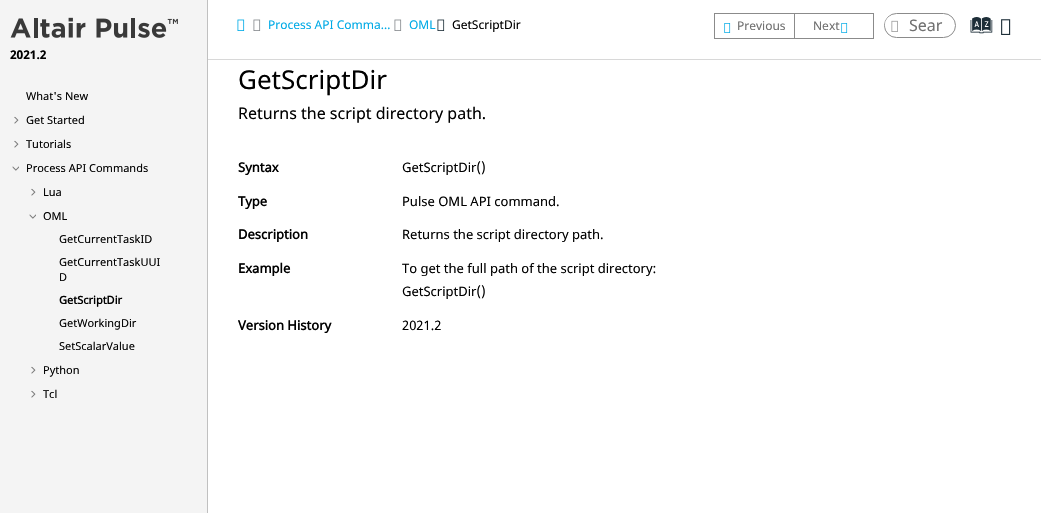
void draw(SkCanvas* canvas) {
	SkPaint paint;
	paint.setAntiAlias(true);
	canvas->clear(0xffffffff);
	paint.setColor(0xfff4f4f4);
	canvas->drawRect(SkRect::MakeXYWH(0, 0, 207, 513), paint);
	paint.setColor(0xffc0c0c0);
	canvas->drawRect(SkRect::MakeXYWH(207, 0, 1, 513), paint);
	canvas->drawImageRect(SkImages::DeferredFromEncodedData(SkData::MakeFromFileName("img1.png")), SkRect::MakeXYWH(10, 17, 168, 21), SkSamplingOptions());
	SkFont f1(fontMgr->matchFamilyStyle("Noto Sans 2", SkFontStyle::Bold()), 12);
	f1.setSubpixel(true);
	paint.setColor(0xff000000);
	canvas->drawString("2021.2", 10, 59, f1, paint);
	SkFont f2(fontMgr->matchFamilyStyle("Noto Sans", SkFontStyle::Normal()), 11);
	f2.setSubpixel(true);
	canvas->drawString("What's New", 26, 100, f2, paint);
	canvas->drawImageRect(SkImages::DeferredFromEncodedData(SkData::MakeFromFileName("img2.png")), SkRect::MakeXYWH(14, 116, 5, 8), SkSamplingOptions());
	canvas->drawString("Get Started", 26, 124, f2, paint);
	canvas->drawImageRect(SkImages::DeferredFromEncodedData(SkData::MakeFromFileName("img2.png")), SkRect::MakeXYWH(14, 140, 5, 8), SkSamplingOptions());
	canvas->drawString("Tutorials", 26, 148, f2, paint);
	canvas->drawImageRect(SkImages::DeferredFromEncodedData(SkData::MakeFromFileName("img3.png")), SkRect::MakeXYWH(12, 166, 7, 5), SkSamplingOptions());
	canvas->drawString("Process API Commands", 26, 172, f2, paint);
	canvas->drawImageRect(SkImages::DeferredFromEncodedData(SkData::MakeFromFileName("img2.png")), SkRect::MakeXYWH(31, 188, 5, 8), SkSamplingOptions());
	canvas->drawString("Lua", 43, 196, f2, paint);
	canvas->drawImageRect(SkImages::DeferredFromEncodedData(SkData::MakeFromFileName("img3.png")), SkRect::MakeXYWH(29, 214, 7, 5), SkSamplingOptions());
	canvas->drawString("OML", 43, 220, f2, paint);
	canvas->drawString("GetCurrentTaskID", 59, 243, f2, paint);
	canvas->drawString("GetCurrentTaskUUI", 59, 266, f2, paint);
	canvas->drawString("D", 59, 281, f2, paint);
	SkFont f3(fontMgr->matchFamilyStyle("Noto Sans", SkFontStyle::Bold()), 11);
	f3.setSubpixel(true);
	canvas->drawString("GetScriptDir", 59, 304, f3, paint);
	canvas->drawString("GetWorkingDir", 59, 327, f2, paint);
	canvas->drawString("SetScalarValue", 59, 350, f2, paint);
	canvas->drawImageRect(SkImages::DeferredFromEncodedData(SkData::MakeFromFileName("img2.png")), SkRect::MakeXYWH(31, 366, 5, 8), SkSamplingOptions());
	canvas->drawString("Python", 43, 374, f2, paint);
	canvas->drawImageRect(SkImages::DeferredFromEncodedData(SkData::MakeFromFileName("img2.png")), SkRect::MakeXYWH(31, 390, 5, 8), SkSamplingOptions());
	canvas->drawString("Tcl", 43, 398, f2, paint);
	paint.setColor(0xffd8d8d8);
	canvas->drawRect(SkRect::MakeXYWH(208, 59, 833, 1), paint);
	canvas->drawImageRect(SkImages::DeferredFromEncodedData(SkData::MakeFromFileName("img4.png")), SkRect::MakeXYWH(237, 19, 8, 12), SkSamplingOptions());
	canvas->drawImageRect(SkImages::DeferredFromEncodedData(SkData::MakeFromFileName("img5.png")), SkRect::MakeXYWH(253, 19, 8, 12), SkSamplingOptions());
	SkFont f4(fontMgr->matchFamilyStyle("Noto Sans", SkFontStyle::Normal()), 12);
	f4.setSubpixel(true);
	paint.setColor(0xff00aae6);
	canvas->drawString("Process API Comma…", 268, 29, f4, paint);
	canvas->drawImageRect(SkImages::DeferredFromEncodedData(SkData::MakeFromFileName("img5.png")), SkRect::MakeXYWH(394, 19, 8, 12), SkSamplingOptions());
	canvas->drawString("OML", 409, 29, f4, paint);
	canvas->drawImageRect(SkImages::DeferredFromEncodedData(SkData::MakeFromFileName("img6.png")), SkRect::MakeXYWH(437, 19, 8, 12), SkSamplingOptions());
	paint.setColor(0xff000000);
	canvas->drawString("GetScriptDir", 452, 29, f4, paint);
	paint.setColor(0xff8b8b8b);
	canvas->drawRect(SkRect::MakeXYWH(714, 13, 80, 1), paint);
	canvas->drawRect(SkRect::MakeXYWH(714, 38, 80, 1), paint);
	canvas->drawRect(SkRect::MakeXYWH(714, 13, 1, 26), paint);
	canvas->drawImageRect(SkImages::DeferredFromEncodedData(SkData::MakeFromFileName("img7.png")), SkRect::MakeXYWH(724, 23, 7, 10), SkSamplingOptions());
	paint.setColor(0xff707070);
	canvas->drawString("Previous", 737, 30, f4, paint);
	paint.setStroke(true);
	paint.setStrokeWidth(1);
	paint.setColor(0xff8b8b8b);
	canvas->drawRect(SkRect::MakeXYWH(794.5, 13.5, 79, 25), paint);
	paint.setStroke(false);
	paint.setColor(0xff707070);
	canvas->drawString("Next", 813, 30, f4, paint);
	canvas->drawImageRect(SkImages::DeferredFromEncodedData(SkData::MakeFromFileName("img7.png")), SkRect::MakeXYWH(841, 23, 7, 10), SkSamplingOptions());
	paint.setStroke(true);
	paint.setColor(0xff8b8b8b);
	canvas->drawRoundRect(SkRect::MakeXYWH(884.5, 13.5, 71, 24), 12, 12, paint);
	paint.setStroke(false);
	paint.setColor(0xffffffff);
	canvas->drawRoundRect(SkRect::MakeXYWH(885, 15, 20, 19), 9.5, 9.5, paint);
	canvas->drawImageRect(SkImages::DeferredFromEncodedData(SkData::MakeFromFileName("img8.png")), SkRect::MakeXYWH(891, 20, 7, 12), SkSamplingOptions());
	SkFont f5(fontMgr->matchFamilyStyle("Noto Sans", SkFontStyle::Normal()), 16);
	f5.setSubpixel(true);
	paint.setColor(0xff707070);
	canvas->drawString("Sear", 909, 31, f5, paint);
	SkFont f6(fontMgr->matchFamilyStyle("Oxygen", SkFontStyle::Normal()), 23);
	f6.setSubpixel(true);
	paint.setColor(0xff1d2e38);
	canvas->drawString("a", 973, 36, f6, paint);
	canvas->drawImageRect(SkImages::DeferredFromEncodedData(SkData::MakeFromFileName("img9.png")), SkRect::MakeXYWH(1001, 19, 10, 16), SkSamplingOptions());
	SkFont f7(fontMgr->matchFamilyStyle("Noto Sans", SkFontStyle::Normal()), 26);
	f7.setSubpixel(true);
	paint.setColor(0xff000000);
	canvas->drawString("GetScriptDir", 238, 89, f7, paint);
	canvas->drawString("Returns the script directory path.", 238, 119, f5, paint);
	SkFont f8(fontMgr->matchFamilyStyle("Noto Sans", SkFontStyle::Bold()), 13);
	f8.setSubpixel(true);
	canvas->drawString("Syntax", 238, 172, f8, paint);
	SkFont f9(fontMgr->matchFamilyStyle("Noto Sans", SkFontStyle::Normal()), 13);
	f9.setSubpixel(true);
	canvas->drawString("GetScriptDir()", 402, 172, f9, paint);
	canvas->drawString("Type", 238, 206, f8, paint);
	canvas->drawString("Pulse OML API command.", 402, 206, f9, paint);
	canvas->drawString("Description", 238, 239, f8, paint);
	canvas->drawString("Returns the script directory path.", 402, 239, f9, paint);
	canvas->drawString("Example", 238, 273, f8, paint);
	canvas->drawString("To get the full path of the script directory:", 402, 273, f9, paint);
	canvas->drawString("GetScriptDir()", 402, 296, f9, paint);
	canvas->drawString("Version History", 238, 330, f8, paint);
	canvas->drawString("2021.2", 402, 330, f9, paint);
}
